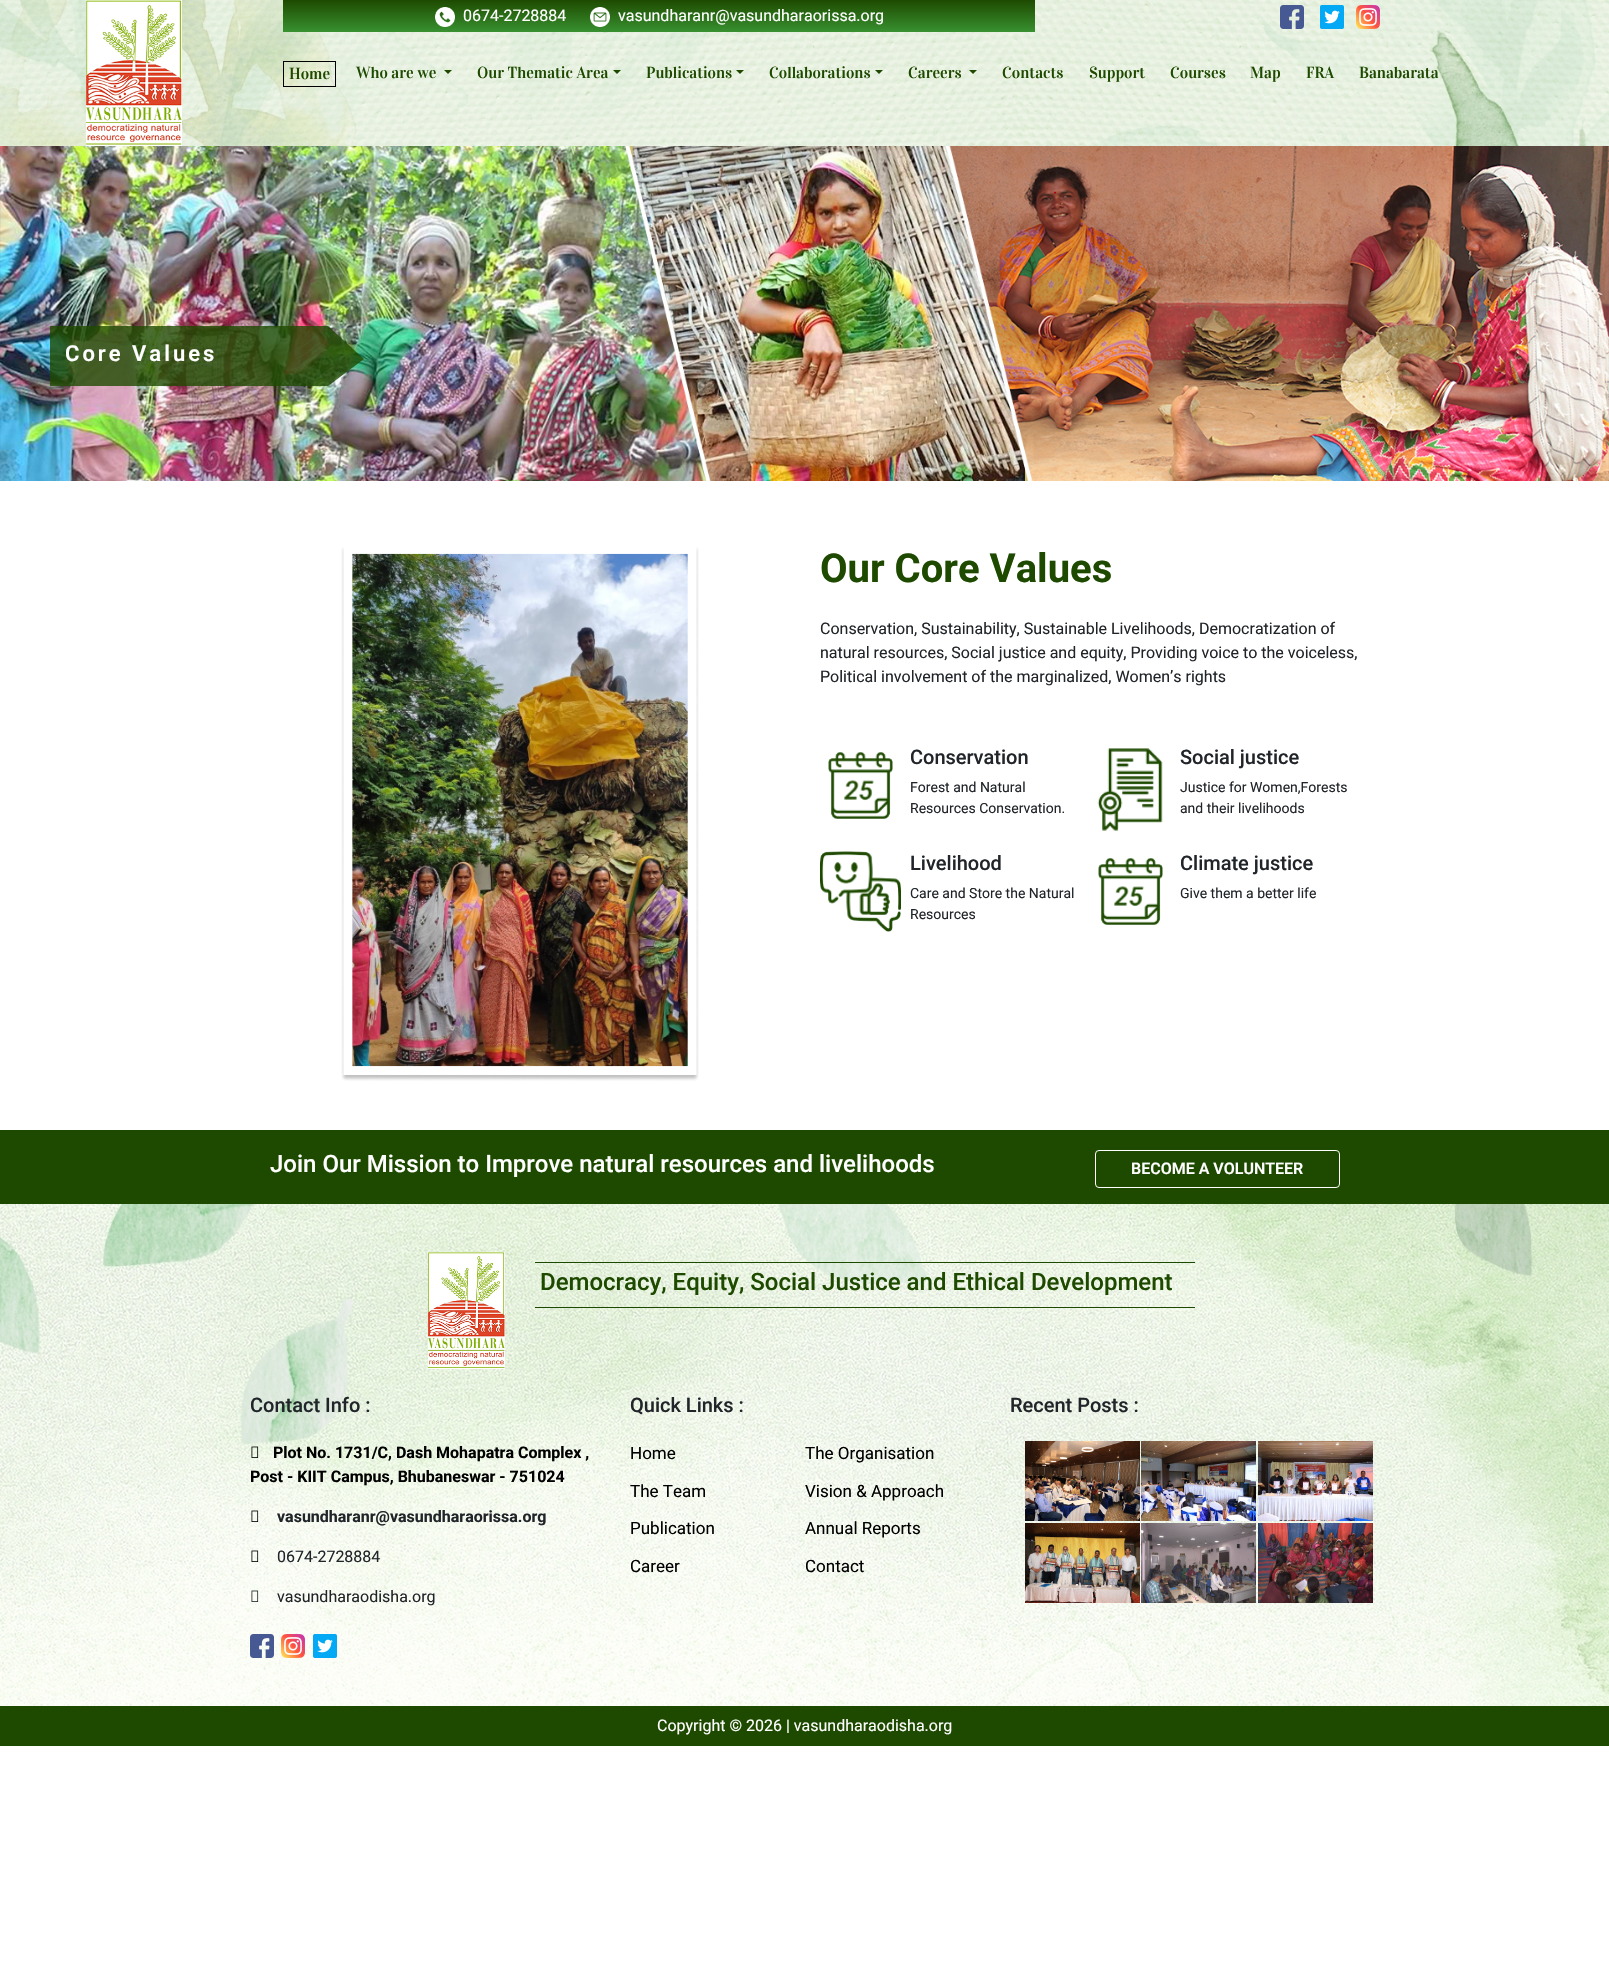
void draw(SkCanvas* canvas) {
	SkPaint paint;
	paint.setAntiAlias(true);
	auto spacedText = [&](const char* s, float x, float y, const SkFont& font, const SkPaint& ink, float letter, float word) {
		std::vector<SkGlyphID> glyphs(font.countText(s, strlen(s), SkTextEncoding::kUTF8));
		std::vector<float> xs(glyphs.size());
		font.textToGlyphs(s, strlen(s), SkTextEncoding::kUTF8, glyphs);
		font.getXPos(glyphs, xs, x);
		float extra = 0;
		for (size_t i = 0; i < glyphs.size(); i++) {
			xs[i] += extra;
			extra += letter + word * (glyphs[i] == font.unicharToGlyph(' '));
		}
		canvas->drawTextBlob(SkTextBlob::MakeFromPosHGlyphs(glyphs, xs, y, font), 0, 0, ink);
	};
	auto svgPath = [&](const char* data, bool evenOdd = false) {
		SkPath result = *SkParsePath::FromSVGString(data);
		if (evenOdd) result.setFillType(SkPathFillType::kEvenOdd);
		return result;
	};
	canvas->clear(0xffffffff);
	canvas->drawImageRect(SkImages::DeferredFromEncodedData(SkData::MakeFromFileName("img1.png")), SkRect::MakeXYWH(0, 0, 1609, 146), SkSamplingOptions());
	canvas->drawImageRect(SkImages::DeferredFromEncodedData(SkData::MakeFromFileName("img2.png")), SkRect::MakeXYWH(86, 0, 96, 146), SkSamplingOptions());
	canvas->drawImageRect(SkImages::DeferredFromEncodedData(SkData::MakeFromFileName("img3.png")), SkRect::MakeXYWH(435, 7, 20, 20), SkSamplingOptions());
	SkFont f1(fontMgr->matchFamilyStyle("Roboto", SkFontStyle::Normal()), 16);
	f1.setSubpixel(true);
	paint.setColor(0xffffffff);
	canvas->drawString("0674-2728884", 463, 21, f1, paint);
	canvas->drawImageRect(SkImages::DeferredFromEncodedData(SkData::MakeFromFileName("img4.png")), SkRect::MakeXYWH(590, 7, 20, 20), SkSamplingOptions());
	canvas->drawString("vasundharanr@vasundharaorissa.org", 618, 21, f1, paint);
	canvas->drawImageRect(SkImages::DeferredFromEncodedData(SkData::MakeFromFileName("img5.png")), SkRect::MakeXYWH(1280, 5, 24, 24), SkSamplingOptions());
	canvas->drawImageRect(SkImages::DeferredFromEncodedData(SkData::MakeFromFileName("img6.png")), SkRect::MakeXYWH(1320, 5, 24, 24), SkSamplingOptions());
	canvas->drawImageRect(SkImages::DeferredFromEncodedData(SkData::MakeFromFileName("img7.png")), SkRect::MakeXYWH(1356, 5, 24, 24), SkSamplingOptions());
	paint.setStroke(true);
	paint.setStrokeWidth(1);
	paint.setColor(0xff000000);
	canvas->drawRect(SkRect::MakeXYWH(283.5, 61.5, 52, 25), paint);
	SkFont f2(fontMgr->matchFamilyStyle("Vidaloka", SkFontStyle::Normal()), 16);
	f2.setSubpixel(true);
	paint.setStroke(false);
	paint.setColor(0xff1e4a00);
	canvas->drawString("Home", 289, 79, f2, paint);
	canvas->drawString("Who are we", 356, 78, f2, paint);
	canvas->drawPath(svgPath("M444 70H452L448 74Z"), paint);
	canvas->drawString("Our Thematic Area", 477, 78, f2, paint);
	canvas->drawPath(svgPath("M613 70H621L617 74Z"), paint);
	canvas->drawString("Publications", 646, 78, f2, paint);
	canvas->drawPath(svgPath("M736 70H744L740 74Z"), paint);
	canvas->drawString("Collaborations", 769, 78, f2, paint);
	canvas->drawPath(svgPath("M875 70H883L879 74Z"), paint);
	canvas->drawString("Careers", 908, 78, f2, paint);
	canvas->drawPath(svgPath("M969 70H977L973 74Z"), paint);
	canvas->drawString("Contacts", 1002, 78, f2, paint);
	canvas->drawString("Support", 1089, 78, f2, paint);
	canvas->drawString("Courses", 1170, 78, f2, paint);
	canvas->drawString("Map", 1250, 78, f2, paint);
	canvas->drawString("FRA", 1306, 78, f2, paint);
	canvas->drawString("Banabarata", 1359, 78, f2, paint);
	canvas->drawImageRect(SkImages::DeferredFromEncodedData(SkData::MakeFromFileName("img8.png")), SkRect::MakeXYWH(0, 146, 1609, 335), SkSamplingOptions());
	paint.setColor(0xcc1e4a00);
	canvas->drawPath(svgPath("M50 326V386H328L364 359L328 326Z"), paint);
	SkFont f3(fontMgr->matchFamilyStyle("Roboto", SkFontStyle(600, SkFontStyle::kNormal_Width, SkFontStyle::kUpright_Slant)), 22);
	f3.setSubpixel(true);
	paint.setColor(0xffffffff);
	spacedText("Core Values", 65, 361, f3, paint, 3, 0);
	canvas->drawImageRect(SkImages::DeferredFromEncodedData(SkData::MakeFromFileName("img9.png")), SkRect::MakeXYWH(341, 547, 358, 534), SkSamplingOptions());
	SkFont f4(fontMgr->matchFamilyStyle("Roboto", SkFontStyle::Bold()), 40);
	f4.setSubpixel(true);
	paint.setColor(0xff1e4a00);
	canvas->drawString("Our Core Values", 820, 582, f4, paint);
	paint.setColor(0xff212529);
	canvas->drawString("Conservation, Sustainability, Sustainable Livelihoods, Democratization of", 820, 634, f1, paint);
	canvas->drawString("natural resources, Social justice and equity, Providing voice to the voiceless,", 820, 658, f1, paint);
	canvas->drawString("Political involvement of the marginalized, Women’s rights", 820, 682, f1, paint);
	canvas->drawImageRect(SkImages::DeferredFromEncodedData(SkData::MakeFromFileName("img10.png")), SkRect::MakeXYWH(828, 752, 65, 67), SkSamplingOptions());
	SkFont f5(fontMgr->matchFamilyStyle("Roboto", SkFontStyle(500, SkFontStyle::kNormal_Width, SkFontStyle::kUpright_Slant)), 20);
	f5.setSubpixel(true);
	canvas->drawString("Conservation", 910, 764, f5, paint);
	SkFont f6(fontMgr->matchFamilyStyle("Roboto", SkFontStyle::Normal()), 14);
	f6.setSubpixel(true);
	canvas->drawString("Forest and Natural", 910, 792, f6, paint);
	canvas->drawString("Resources Conservation.", 910, 813, f6, paint);
	canvas->drawImageRect(SkImages::DeferredFromEncodedData(SkData::MakeFromFileName("img11.png")), SkRect::MakeXYWH(1097, 748, 66, 83), SkSamplingOptions());
	canvas->drawString("Social justice", 1180, 764, f5, paint);
	canvas->drawString("Justice for Women,Forests", 1180, 792, f6, paint);
	canvas->drawString("and their livelihoods", 1180, 813, f6, paint);
	canvas->drawImageRect(SkImages::DeferredFromEncodedData(SkData::MakeFromFileName("img12.png")), SkRect::MakeXYWH(820, 851, 81, 81), SkSamplingOptions());
	canvas->drawString("Livelihood", 910, 870, f5, paint);
	canvas->drawString("Care and Store the Natural", 910, 898, f6, paint);
	canvas->drawString("Resources", 910, 919, f6, paint);
	canvas->drawImageRect(SkImages::DeferredFromEncodedData(SkData::MakeFromFileName("img10.png")), SkRect::MakeXYWH(1098, 858, 65, 67), SkSamplingOptions());
	canvas->drawString("Climate justice", 1180, 870, f5, paint);
	canvas->drawString("Give them a better life", 1180, 898, f6, paint);
	paint.setColor(0xff1e4a00);
	canvas->drawRect(SkRect::MakeXYWH(0, 1130, 1609, 74), paint);
	SkFont f7(fontMgr->matchFamilyStyle("Roboto", SkFontStyle(500, SkFontStyle::kNormal_Width, SkFontStyle::kUpright_Slant)), 24);
	f7.setSubpixel(true);
	paint.setColor(0xffffffff);
	canvas->drawString("Join Our Mission to Improve natural resources and livelihoods", 270, 1172, f7, paint);
	paint.setStroke(true);
	canvas->drawRoundRect(SkRect::MakeXYWH(1095.5, 1150.5, 244, 37), 3.5, 3.5, paint);
	SkFont f8(fontMgr->matchFamilyStyle("Roboto", SkFontStyle(600, SkFontStyle::kNormal_Width, SkFontStyle::kUpright_Slant)), 16);
	f8.setSubpixel(true);
	paint.setStroke(false);
	canvas->drawString("BECOME A VOLUNTEER", 1131, 1174, f8, paint);
	canvas->drawImageRect(SkImages::DeferredFromEncodedData(SkData::MakeFromFileName("img13.png")), SkRect::MakeXYWH(0, 1204, 1609, 502), SkSamplingOptions());
	canvas->drawImageRect(SkImages::DeferredFromEncodedData(SkData::MakeFromFileName("img14.png")), SkRect::MakeXYWH(428, 1252, 77, 117), SkSamplingOptions());
	paint.setColor(0xff1e4a00);
	canvas->drawRect(SkRect::MakeXYWH(535, 1262, 660, 1), paint);
	canvas->drawRect(SkRect::MakeXYWH(535, 1307, 660, 1), paint);
	canvas->drawString("Democracy, Equity, Social Justice and Ethical Development", 540, 1290, f7, paint);
	paint.setColor(0xff212529);
	canvas->drawString("Contact Info :", 250, 1412, f5, paint);
	canvas->drawImageRect(SkImages::DeferredFromEncodedData(SkData::MakeFromFileName("img15.png")), SkRect::MakeXYWH(251, 1446, 8, 12), SkSamplingOptions());
	SkFont f9(fontMgr->matchFamilyStyle("Roboto", SkFontStyle::Bold()), 16);
	f9.setSubpixel(true);
	paint.setColor(0xff000000);
	canvas->drawString("Plot No. 1731/C, Dash Mohapatra Complex ,", 273, 1458, f9, paint);
	canvas->drawString("Post - KIIT Campus, Bhubaneswar - 751024", 250, 1482, f9, paint);
	canvas->drawImageRect(SkImages::DeferredFromEncodedData(SkData::MakeFromFileName("img16.png")), SkRect::MakeXYWH(251, 1510, 8, 12), SkSamplingOptions());
	paint.setColor(0xff212529);
	canvas->drawString("vasundharanr@vasundharaorissa.org", 277, 1522, f9, paint);
	canvas->drawImageRect(SkImages::DeferredFromEncodedData(SkData::MakeFromFileName("img17.png")), SkRect::MakeXYWH(251, 1550, 8, 12), SkSamplingOptions());
	canvas->drawString("0674-2728884", 277, 1562, f1, paint);
	canvas->drawImageRect(SkImages::DeferredFromEncodedData(SkData::MakeFromFileName("img18.png")), SkRect::MakeXYWH(251, 1590, 8, 12), SkSamplingOptions());
	canvas->drawString("vasundharaodisha.org", 277, 1602, f1, paint);
	canvas->drawImageRect(SkImages::DeferredFromEncodedData(SkData::MakeFromFileName("img19.png")), SkRect::MakeXYWH(250, 1634, 24, 24), SkSamplingOptions());
	canvas->drawImageRect(SkImages::DeferredFromEncodedData(SkData::MakeFromFileName("img20.png")), SkRect::MakeXYWH(281, 1634, 24, 24), SkSamplingOptions());
	canvas->drawImageRect(SkImages::DeferredFromEncodedData(SkData::MakeFromFileName("img21.png")), SkRect::MakeXYWH(313, 1634, 24, 24), SkSamplingOptions());
	canvas->drawString("Quick Links :", 630, 1412, f5, paint);
	SkFont f10(fontMgr->matchFamilyStyle("Roboto", SkFontStyle::Normal()), 17);
	f10.setSubpixel(true);
	paint.setColor(0xff000000);
	canvas->drawString("Home", 630, 1459, f10, paint);
	canvas->drawString("The Organisation", 805, 1459, f10, paint);
	canvas->drawString("The Team", 630, 1497, f10, paint);
	canvas->drawString("Vision & Approach", 805, 1497, f10, paint);
	canvas->drawString("Publication", 630, 1534, f10, paint);
	canvas->drawString("Annual Reports", 805, 1534, f10, paint);
	canvas->drawString("Career", 630, 1572, f10, paint);
	canvas->drawString("Contact", 805, 1572, f10, paint);
	paint.setColor(0xff212529);
	canvas->drawString("Recent Posts :", 1010, 1412, f5, paint);
	canvas->drawImageRect(SkImages::DeferredFromEncodedData(SkData::MakeFromFileName("img22.png")), SkRect::MakeXYWH(1025, 1441, 115, 80), SkSamplingOptions());
	canvas->drawImageRect(SkImages::DeferredFromEncodedData(SkData::MakeFromFileName("img23.png")), SkRect::MakeXYWH(1141, 1441, 115, 80), SkSamplingOptions());
	canvas->drawImageRect(SkImages::DeferredFromEncodedData(SkData::MakeFromFileName("img24.png")), SkRect::MakeXYWH(1258, 1441, 115, 80), SkSamplingOptions());
	canvas->drawImageRect(SkImages::DeferredFromEncodedData(SkData::MakeFromFileName("img25.png")), SkRect::MakeXYWH(1025, 1523, 115, 80), SkSamplingOptions());
	canvas->drawImageRect(SkImages::DeferredFromEncodedData(SkData::MakeFromFileName("img26.png")), SkRect::MakeXYWH(1141, 1523, 115, 80), SkSamplingOptions());
	canvas->drawImageRect(SkImages::DeferredFromEncodedData(SkData::MakeFromFileName("img27.png")), SkRect::MakeXYWH(1258, 1523, 115, 80), SkSamplingOptions());
	paint.setColor(0xff1e4a00);
	canvas->drawRect(SkRect::MakeXYWH(0, 1706, 1609, 40), paint);
	paint.setColor(0xffffffff);
	canvas->drawString("Copyright © 2026 | vasundharaodisha.org", 657, 1731, f1, paint);
}
